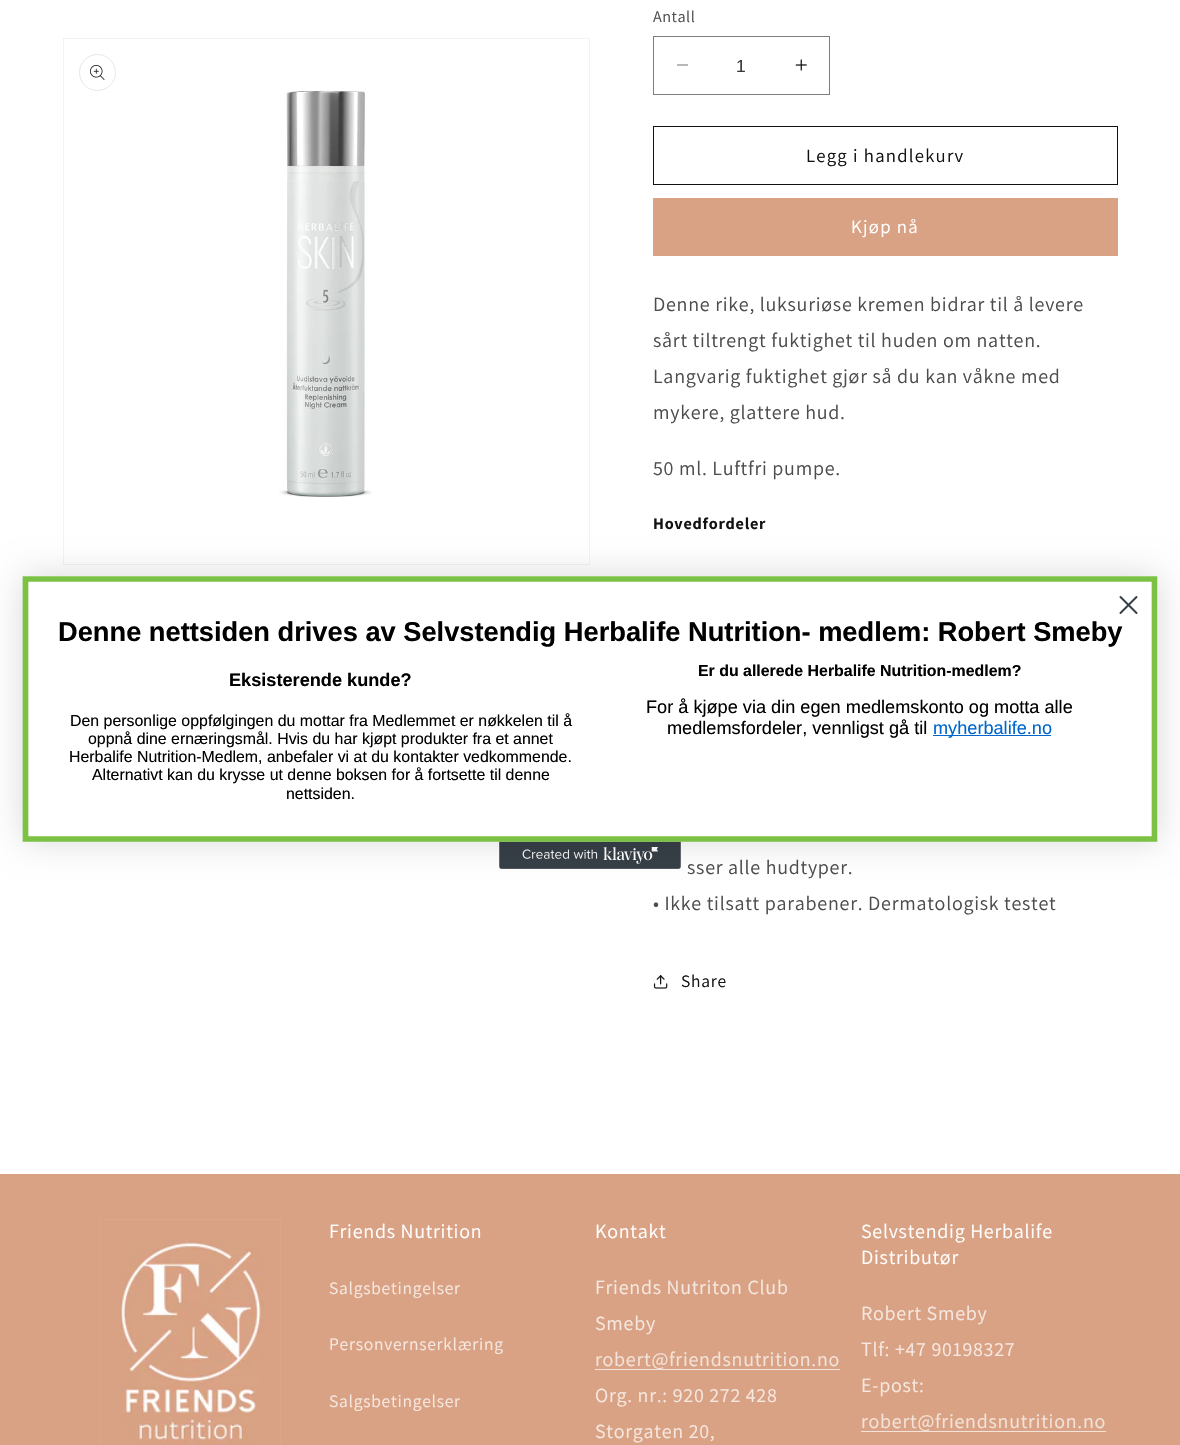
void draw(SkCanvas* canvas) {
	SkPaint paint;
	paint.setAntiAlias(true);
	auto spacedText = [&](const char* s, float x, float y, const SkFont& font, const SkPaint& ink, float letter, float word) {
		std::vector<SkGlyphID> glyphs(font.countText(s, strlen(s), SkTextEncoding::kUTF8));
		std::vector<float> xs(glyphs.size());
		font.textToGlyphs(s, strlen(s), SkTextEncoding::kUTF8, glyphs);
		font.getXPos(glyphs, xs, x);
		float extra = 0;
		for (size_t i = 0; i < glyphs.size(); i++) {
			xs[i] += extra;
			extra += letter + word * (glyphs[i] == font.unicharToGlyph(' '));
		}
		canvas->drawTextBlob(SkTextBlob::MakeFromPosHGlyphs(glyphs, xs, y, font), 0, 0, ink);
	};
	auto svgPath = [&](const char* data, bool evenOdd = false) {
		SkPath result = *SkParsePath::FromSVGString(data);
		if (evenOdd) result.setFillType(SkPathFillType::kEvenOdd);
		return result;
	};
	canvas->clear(0xffffffff);
	paint.setStroke(true);
	paint.setStrokeWidth(1);
	paint.setColor(0xfff3f3f3);
	canvas->drawRect(SkRect::MakeXYWH(63.5, 38.5, 526, 526), paint);
	paint.setColor(0xffe7e7e7);
	canvas->drawCircle(97.5, 72.5, 18, paint);
	canvas->drawImageRect(SkImages::DeferredFromEncodedData(SkData::MakeFromFileName("img1.png")), SkRect::MakeXYWH(90, 65, 15, 15), SkSamplingOptions());
	canvas->drawImageRect(SkImages::DeferredFromEncodedData(SkData::MakeFromFileName("img2.png")), SkRect::MakeXYWH(279, 90, 93, 407), SkSamplingOptions());
	SkFont f1(fontMgr->matchFamilyStyle("Assistant", SkFontStyle::Normal()), 16.25);
	f1.setSubpixel(true);
	paint.setStroke(false);
	paint.setColor(0xff4d4d4d);
	spacedText("Antall", 653, 22, f1, paint, 0.5, 0);
	canvas->drawImageRect(SkImages::DeferredFromEncodedData(SkData::MakeFromFileName("img3.png")), SkRect::MakeXYWH(677, 64, 11, 2), SkSamplingOptions());
	canvas->drawImageRect(SkImages::DeferredFromEncodedData(SkData::MakeFromFileName("img4.png")), SkRect::MakeXYWH(795, 59, 12, 12), SkSamplingOptions());
	paint.setStroke(true);
	paint.setColor(0xff7d7d7d);
	canvas->drawRect(SkRect::MakeXYWH(653.5, 36.5, 176, 58), paint);
	SkFont f2(fontMgr->matchFamilyStyle("Liberation Sans", SkFontStyle::Normal()), 17.5);
	f2.setSubpixel(true);
	paint.setStroke(false);
	paint.setColor(0xff363636);
	canvas->drawString("1", 736, 72, f2, paint);
	paint.setStroke(true);
	paint.setColor(0xff121212);
	canvas->drawRect(SkRect::MakeXYWH(653.5, 126.5, 464, 58), paint);
	SkFont f3(fontMgr->matchFamilyStyle("Assistant", SkFontStyle::Normal()), 18.75);
	f3.setSubpixel(true);
	paint.setStroke(false);
	spacedText("Legg i handlekurv", 806, 162, f3, paint, 1.25, 0);
	paint.setColor(0xffd9a284);
	canvas->drawRect(SkRect::MakeXYWH(653, 198, 465, 58), paint);
	paint.setColor(0xffffffff);
	spacedText("Kjøp nå", 851, 233, f3, paint, 1.25, 0);
	SkFont f4(fontMgr->matchFamilyStyle("Assistant", SkFontStyle::Normal()), 20);
	f4.setSubpixel(true);
	paint.setColor(0xff4d4d4d);
	spacedText("Denne rike, luksuriøse kremen bidrar til å levere", 653, 311, f4, paint, 0.75, 0);
	spacedText("sårt tiltrengt fuktighet til huden om natten.", 653, 347, f4, paint, 0.75, 0);
	spacedText("Langvarig fuktighet gjør så du kan våkne med", 653, 383, f4, paint, 0.75, 0);
	spacedText("mykere, glattere hud.", 653, 419, f4, paint, 0.75, 0);
	spacedText("50 ml. Luftfri pumpe.", 653, 475, f4, paint, 0.75, 0);
	SkFont f5(fontMgr->matchFamilyStyle("Assistant", SkFontStyle::Bold()), 16.25);
	f5.setSubpixel(true);
	paint.setColor(0xff121212);
	spacedText("Hovedfordeler", 653, 529, f5, paint, 0.75, 0);
	paint.setColor(0xff4d4d4d);
	spacedText("sser alle hudtyper.", 687, 874, f4, paint, 0.75, 0);
	spacedText("• Ikke tilsatt parabener. Dermatologisk testet", 653, 910, f4, paint, 0.75, 0);
	canvas->drawImageRect(SkImages::DeferredFromEncodedData(SkData::MakeFromFileName("img5.png")), SkRect::MakeXYWH(653, 975, 15, 14), SkSamplingOptions());
	SkFont f6(fontMgr->matchFamilyStyle("Assistant", SkFontStyle::Normal()), 17.5);
	f6.setSubpixel(true);
	paint.setColor(0xff121212);
	spacedText("Share", 681, 987, f6, paint, 0.75, 0);
	canvas->drawImageRect(SkImages::DeferredFromEncodedData(SkData::MakeFromFileName("img6.png")), SkRect::MakeXYWH(499, 841, 182, 28), SkSamplingOptions());
	paint.setColor(0x26000000);
	paint.setMaskFilter(SkMaskFilter::MakeBlur(kNormal_SkBlurStyle, 17));
	canvas->drawRoundRect(SkRect::MakeXYWH(23, 576, 1135, 265), 1, 1, paint);
	paint.setMaskFilter(nullptr);
	paint.setColor(0xffffffff);
	canvas->drawRoundRect(SkRect::MakeXYWH(23, 576, 1135, 265), 1, 1, paint);
	paint.setStroke(true);
	paint.setStrokeWidth(5.7);
	paint.setColor(0xff7bc244);
	canvas->drawPath(svgPath("M25.5 579H1154.5V839H25.5Z"), paint);
	paint.setStrokeWidth(2);
	paint.setStrokeCap(SkPaint::kRound_Cap);
	paint.setStrokeJoin(SkPaint::kRound_Join);
	paint.setColor(0xff373f47);
	canvas->drawPath(svgPath("M1120.5 597L1136.5 613M1120.5 613L1136.5 597Z"), paint);
	SkFont f7(fontMgr->matchFamilyStyle("Liberation Sans", SkFontStyle::Bold()), 27.25);
	f7.setSubpixel(true);
	paint.setStroke(false);
	paint.setColor(0xff000000);
	canvas->drawString("Denne nettsiden drives av Selvstendig Herbalife Nutrition- medlem: Robert Smeby", 58, 641, f7, paint);
	SkFont f8(fontMgr->matchFamilyStyle("Liberation Sans", SkFontStyle::Bold()), 18.15);
	f8.setSubpixel(true);
	canvas->drawString("Eksisterende kunde?", 229, 686, f8, paint);
	SkFont f9(fontMgr->matchFamilyStyle("Liberation Sans", SkFontStyle::Normal()), 15.9);
	f9.setSubpixel(true);
	canvas->drawString("Den personlige oppfølgingen du mottar fra Medlemmet er nøkkelen til å", 70, 726, f9, paint);
	canvas->drawString("oppnå dine ernæringsmål. Hvis du har kjøpt produkter fra et annet", 88, 744, f9, paint);
	canvas->drawString("Herbalife Nutrition-Medlem, anbefaler vi at du kontakter vedkommende.", 69, 762, f9, paint);
	canvas->drawString("Alternativt kan du krysse ut denne boksen for å fortsette til denne", 92, 780, f9, paint);
	canvas->drawString("nettsiden.", 286, 799, f9, paint);
	SkFont f10(fontMgr->matchFamilyStyle("Liberation Sans", SkFontStyle::Bold()), 15.9);
	f10.setSubpixel(true);
	canvas->drawString("Er du allerede Herbalife Nutrition-medlem?", 698, 676, f10, paint);
	SkFont f11(fontMgr->matchFamilyStyle("Liberation Sans", SkFontStyle::Normal()), 18.15);
	f11.setSubpixel(true);
	canvas->drawString("For å kjøpe via din egen medlemskonto og motta alle", 646, 713, f11, paint);
	canvas->drawString("medlemsfordeler, vennligst gå til", 667, 734, f11, paint);
	paint.setColor(0xff0066cc);
	canvas->drawRect(SkRect::MakeXYWH(933, 735, 118, 1), paint);
	canvas->drawString("myherbalife.no", 933, 734, f11, paint);
	paint.setColor(0xffd9a284);
	canvas->drawRect(SkRect::MakeXYWH(0, 1174, 1180, 271), paint);
	paint.setStroke(true);
	paint.setStrokeWidth(1);
	paint.setStrokeCap(SkPaint::kButt_Cap);
	paint.setStrokeJoin(SkPaint::kMiter_Join);
	paint.setColor(0xffdba78a);
	canvas->drawRect(SkRect::MakeXYWH(100.5, 1219.5, 180, 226), paint);
	canvas->drawImageRect(SkImages::DeferredFromEncodedData(SkData::MakeFromFileName("img7.png")), SkRect::MakeXYWH(120, 1240, 144, 205), SkSamplingOptions());
	paint.setStroke(false);
	paint.setColor(0xffffffff);
	spacedText("Friends Nutrition", 329, 1238, f4, paint, 0.75, 0);
	paint.setColor(0xfff6e8e0);
	spacedText("Salgsbetingelser", 329, 1294, f6, paint, 0.75, 0);
	spacedText("Personvernserklæring", 329, 1350, f6, paint, 0.75, 0);
	spacedText("Salgsbetingelser", 329, 1407, f6, paint, 0.75, 0);
	paint.setColor(0xffffffff);
	spacedText("Kontakt", 595, 1238, f4, paint, 0.75, 0);
	paint.setColor(0xfff6e8e0);
	spacedText("Friends Nutriton Club", 595, 1294, f4, paint, 0.75, 0);
	spacedText("Smeby", 595, 1330, f4, paint, 0.75, 0);
	paint.setColor(0xfff4e3da);
	canvas->drawRect(SkRect::MakeXYWH(595, 1369, 245, 1), paint);
	spacedText("robert@friendsnutrition.no", 595, 1366, f4, paint, 0.75, 0);
	paint.setColor(0xfff6e8e0);
	spacedText("Org. nr.: 920 272 428", 595, 1402, f4, paint, 0.75, 0);
	spacedText("Storgaten 20,", 595, 1438, f4, paint, 0.75, 0);
	paint.setColor(0xffffffff);
	spacedText("Selvstendig Herbalife", 861, 1238, f4, paint, 0.75, 0);
	spacedText("Distributør", 861, 1264, f4, paint, 0.75, 0);
	paint.setColor(0xfff6e8e0);
	spacedText("Robert Smeby", 861, 1320, f4, paint, 0.75, 0);
	spacedText("Tlf: +47 90198327", 861, 1356, f4, paint, 0.75, 0);
	spacedText("E-post:", 861, 1392, f4, paint, 0.75, 0);
	paint.setColor(0xfff4e3da);
	canvas->drawRect(SkRect::MakeXYWH(861, 1431, 245, 1), paint);
	spacedText("robert@friendsnutrition.no", 861, 1428, f4, paint, 0.75, 0);
}
